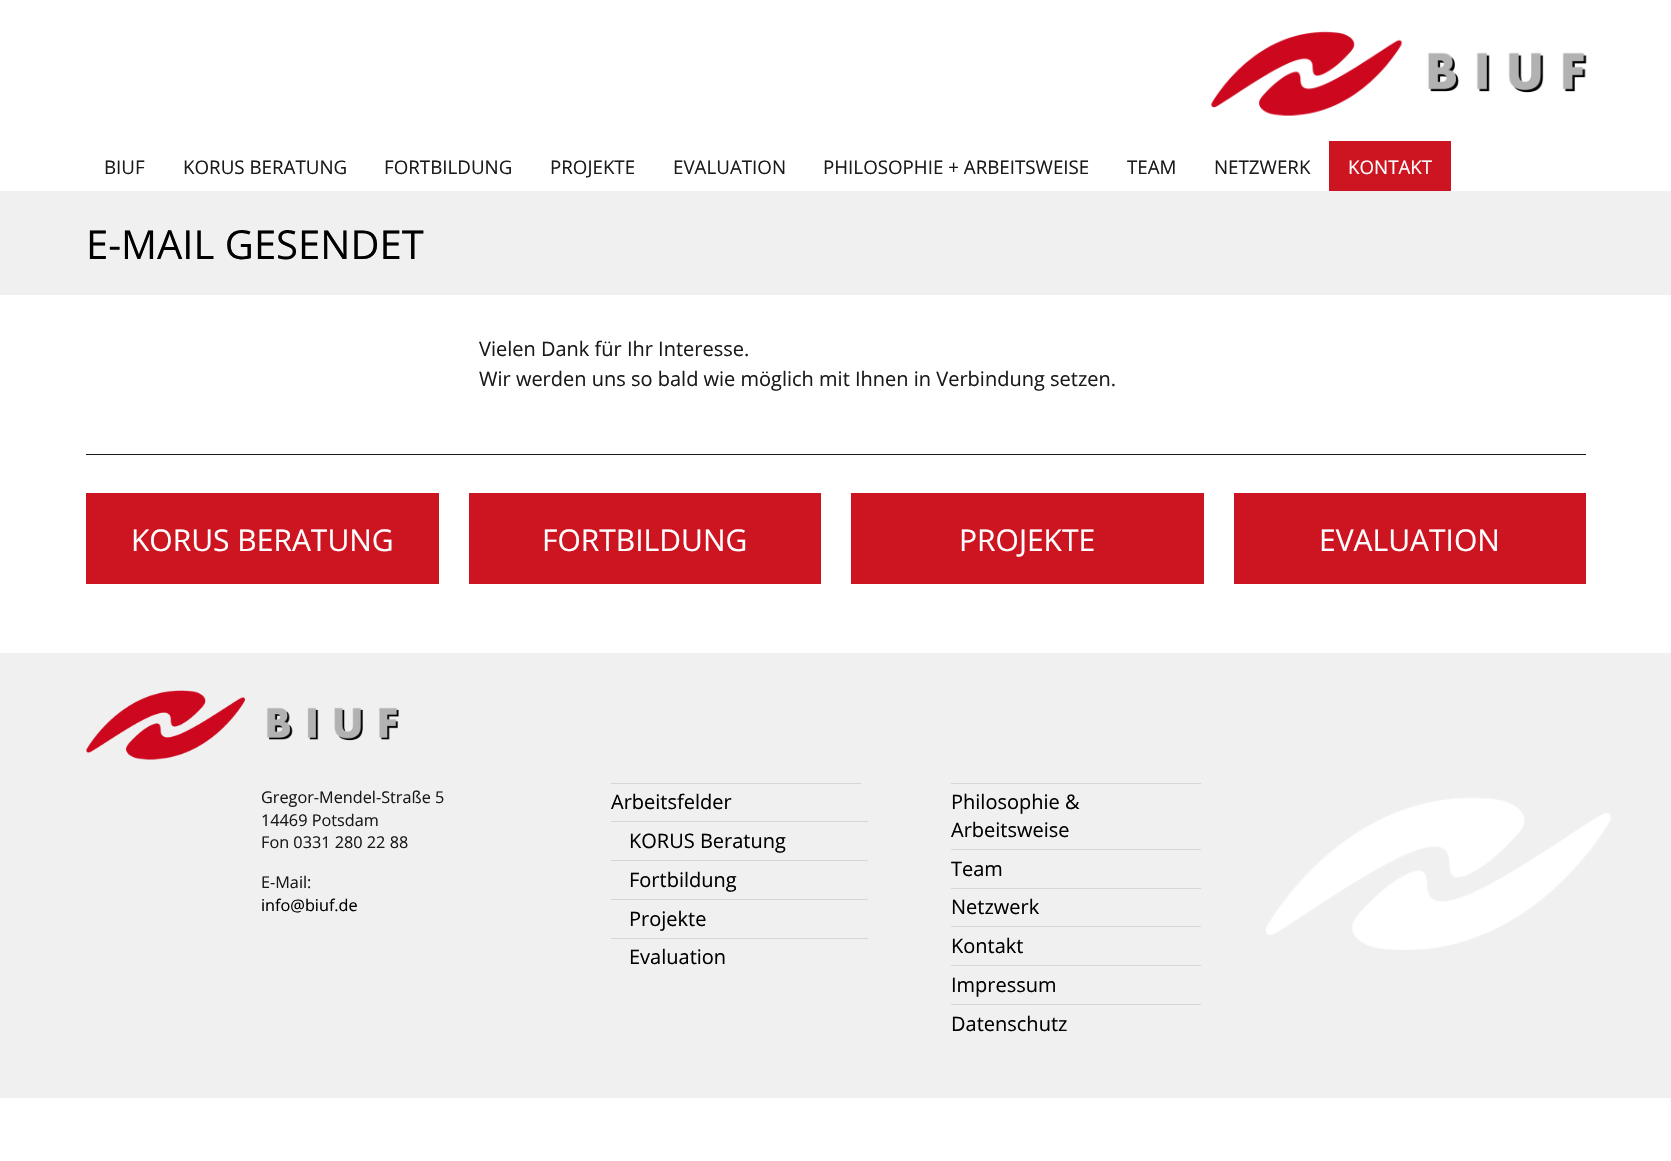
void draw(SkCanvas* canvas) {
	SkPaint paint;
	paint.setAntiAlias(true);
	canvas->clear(0xffffffff);
	canvas->drawImageRect(SkImages::DeferredFromEncodedData(SkData::MakeFromFileName("img1.png")), SkRect::MakeXYWH(1211, 31, 376, 85), SkSamplingOptions());
	SkFont f1(fontMgr->matchFamilyStyle("Open Sans", SkFontStyle::Normal()), 18.75);
	f1.setSubpixel(true);
	paint.setColor(0xff1a1a1a);
	canvas->drawString("BIUF", 104, 174, f1, paint);
	canvas->drawString("KORUS BERATUNG", 183, 174, f1, paint);
	canvas->drawString("FORTBILDUNG", 384, 174, f1, paint);
	canvas->drawString("PROJEKTE", 550, 174, f1, paint);
	canvas->drawString("EVALUATION", 673, 174, f1, paint);
	canvas->drawString("PHILOSOPHIE + ARBEITSWEISE", 823, 174, f1, paint);
	canvas->drawString("TEAM", 1127, 174, f1, paint);
	canvas->drawString("NETZWERK", 1214, 174, f1, paint);
	paint.setColor(0xffcd1421);
	canvas->drawRect(SkRect::MakeXYWH(1329, 141, 122, 50), paint);
	paint.setColor(0xffffffff);
	canvas->drawString("KONTAKT", 1348, 174, f1, paint);
	paint.setColor(0xfff0f0f0);
	canvas->drawRect(SkRect::MakeXYWH(0, 191, 1671, 104), paint);
	SkFont f2(fontMgr->matchFamilyStyle("Open Sans", SkFontStyle::Normal()), 40);
	f2.setSubpixel(true);
	paint.setColor(0xff000000);
	canvas->drawString("E-MAIL GESENDET", 86, 259, f2, paint);
	SkFont f3(fontMgr->matchFamilyStyle("Open Sans", SkFontStyle::Normal()), 20);
	f3.setSubpixel(true);
	paint.setColor(0xff1a1a1a);
	canvas->drawString("Vielen Dank für Ihr Interesse.", 479, 356, f3, paint);
	canvas->drawString("Wir werden uns so bald wie möglich mit Ihnen in Verbindung setzen.", 479, 386, f3, paint);
	canvas->drawRect(SkRect::MakeXYWH(86, 454, 1500, 1), paint);
	paint.setColor(0xffcd1421);
	canvas->drawRect(SkRect::MakeXYWH(86, 493, 353, 91), paint);
	SkFont f4(fontMgr->matchFamilyStyle("Open Sans", SkFontStyle::Normal()), 30);
	f4.setSubpixel(true);
	paint.setColor(0xffffffff);
	canvas->drawString("KORUS BERATUNG", 131, 551, f4, paint);
	paint.setColor(0xffcd1421);
	canvas->drawRect(SkRect::MakeXYWH(469, 493, 352, 91), paint);
	paint.setColor(0xffffffff);
	canvas->drawString("FORTBILDUNG", 542, 551, f4, paint);
	paint.setColor(0xffcd1421);
	canvas->drawRect(SkRect::MakeXYWH(851, 493, 353, 91), paint);
	paint.setColor(0xffffffff);
	canvas->drawString("PROJEKTE", 959, 551, f4, paint);
	paint.setColor(0xffcd1421);
	canvas->drawRect(SkRect::MakeXYWH(1234, 493, 352, 91), paint);
	paint.setColor(0xffffffff);
	canvas->drawString("EVALUATION", 1319, 551, f4, paint);
	paint.setColor(0xfff0f0f0);
	canvas->drawRect(SkRect::MakeXYWH(0, 653, 1671, 445), paint);
	canvas->drawImageRect(SkImages::DeferredFromEncodedData(SkData::MakeFromFileName("img2.png")), SkRect::MakeXYWH(1265, 797, 346, 153), SkSamplingOptions());
	canvas->drawImageRect(SkImages::DeferredFromEncodedData(SkData::MakeFromFileName("img3.png")), SkRect::MakeXYWH(86, 690, 313, 70), SkSamplingOptions());
	SkFont f5(fontMgr->matchFamilyStyle("Open Sans", SkFontStyle::Normal()), 16.25);
	f5.setSubpixel(true);
	paint.setColor(0xff1a1a1a);
	canvas->drawString("Gregor-Mendel-Straße 5", 261, 803, f5, paint);
	canvas->drawString("14469 Potsdam", 261, 826, f5, paint);
	canvas->drawString("Fon 0331 280 22 88", 261, 848, f5, paint);
	canvas->drawString("E-Mail:", 261, 888, f5, paint);
	paint.setColor(0xff000000);
	canvas->drawString("info@biuf.de", 261, 911, f5, paint);
	paint.setColor(0xffd6d6d6);
	canvas->drawRect(SkRect::MakeXYWH(611, 783, 250, 1), paint);
	paint.setColor(0xff000000);
	canvas->drawString("Arbeitsfelder", 611, 809, f3, paint);
	paint.setColor(0xffd6d6d6);
	canvas->drawRect(SkRect::MakeXYWH(611, 821, 257, 1), paint);
	paint.setColor(0xff000000);
	canvas->drawString("KORUS Beratung", 629, 848, f3, paint);
	paint.setColor(0xffd6d6d6);
	canvas->drawRect(SkRect::MakeXYWH(611, 860, 257, 1), paint);
	paint.setColor(0xff000000);
	canvas->drawString("Fortbildung", 629, 887, f3, paint);
	paint.setColor(0xffd6d6d6);
	canvas->drawRect(SkRect::MakeXYWH(611, 899, 257, 1), paint);
	paint.setColor(0xff000000);
	canvas->drawString("Projekte", 629, 926, f3, paint);
	paint.setColor(0xffd6d6d6);
	canvas->drawRect(SkRect::MakeXYWH(611, 938, 257, 1), paint);
	paint.setColor(0xff000000);
	canvas->drawString("Evaluation", 629, 964, f3, paint);
	paint.setColor(0xffd6d6d6);
	canvas->drawRect(SkRect::MakeXYWH(951, 783, 250, 1), paint);
	paint.setColor(0xff000000);
	canvas->drawString("Philosophie &", 951, 809, f3, paint);
	canvas->drawString("Arbeitsweise", 951, 837, f3, paint);
	paint.setColor(0xffd6d6d6);
	canvas->drawRect(SkRect::MakeXYWH(951, 849, 250, 1), paint);
	paint.setColor(0xff000000);
	canvas->drawString("Team", 951, 876, f3, paint);
	paint.setColor(0xffd6d6d6);
	canvas->drawRect(SkRect::MakeXYWH(951, 888, 250, 1), paint);
	paint.setColor(0xff000000);
	canvas->drawString("Netzwerk", 951, 914, f3, paint);
	paint.setColor(0xffd6d6d6);
	canvas->drawRect(SkRect::MakeXYWH(951, 926, 250, 1), paint);
	paint.setColor(0xff000000);
	canvas->drawString("Kontakt", 951, 953, f3, paint);
	paint.setColor(0xffd6d6d6);
	canvas->drawRect(SkRect::MakeXYWH(951, 965, 250, 1), paint);
	paint.setColor(0xff000000);
	canvas->drawString("Impressum", 951, 992, f3, paint);
	paint.setColor(0xffd6d6d6);
	canvas->drawRect(SkRect::MakeXYWH(951, 1004, 250, 1), paint);
	paint.setColor(0xff000000);
	canvas->drawString("Datenschutz", 951, 1031, f3, paint);
}
